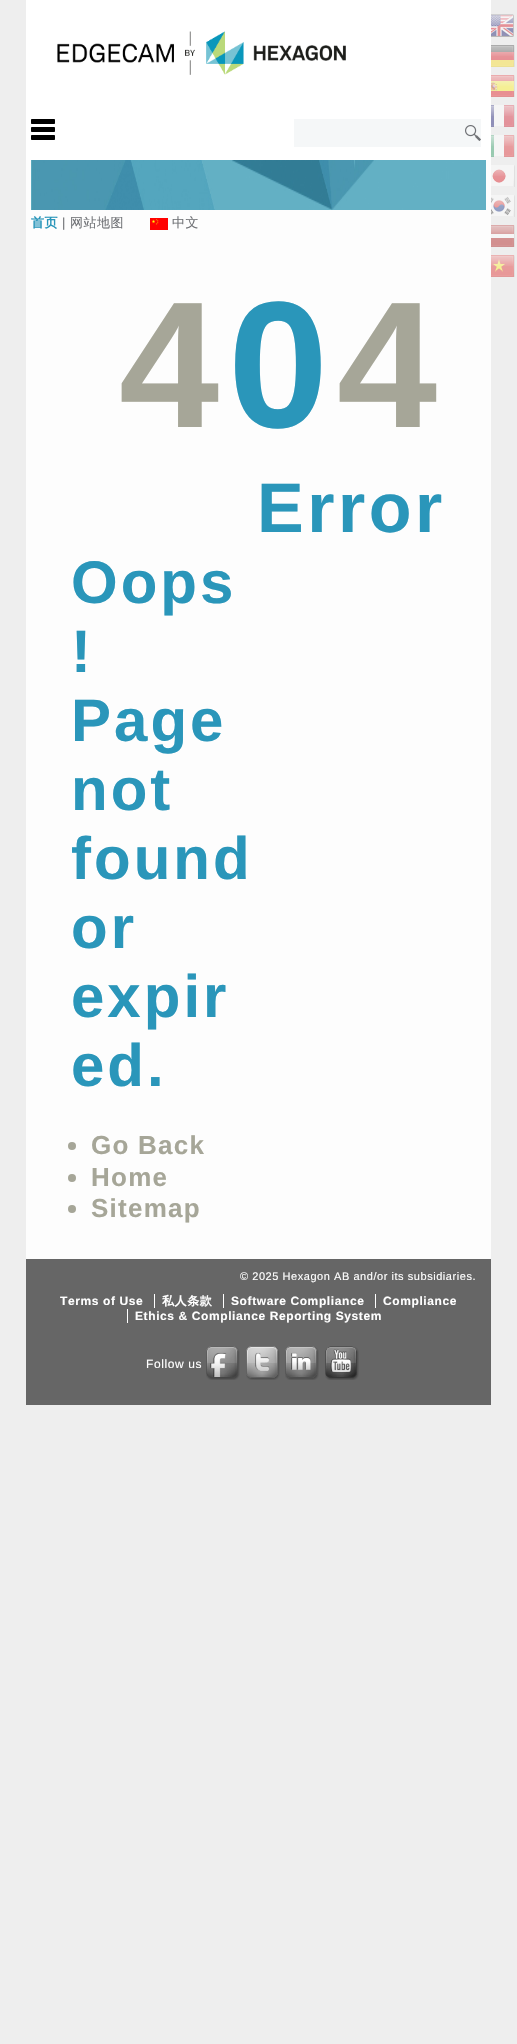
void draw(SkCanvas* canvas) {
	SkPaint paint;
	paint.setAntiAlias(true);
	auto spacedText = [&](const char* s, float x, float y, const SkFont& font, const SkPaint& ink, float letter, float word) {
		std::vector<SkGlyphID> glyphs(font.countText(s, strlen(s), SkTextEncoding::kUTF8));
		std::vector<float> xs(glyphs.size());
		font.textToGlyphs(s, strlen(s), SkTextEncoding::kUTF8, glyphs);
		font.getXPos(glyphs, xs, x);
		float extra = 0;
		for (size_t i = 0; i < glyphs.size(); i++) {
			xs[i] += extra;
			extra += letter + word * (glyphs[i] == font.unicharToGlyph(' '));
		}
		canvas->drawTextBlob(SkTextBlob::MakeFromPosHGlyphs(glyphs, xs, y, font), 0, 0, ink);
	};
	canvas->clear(0xffeeeeee);
	paint.setColor(0xffffffff);
	canvas->drawRect(SkRect::MakeXYWH(26, 0, 465, 160), paint);
	canvas->drawImageRect(SkImages::DeferredFromEncodedData(SkData::MakeFromFileName("img1.png")), SkRect::MakeXYWH(57, 31, 289, 44), SkSamplingOptions());
	canvas->drawImageRect(SkImages::DeferredFromEncodedData(SkData::MakeFromFileName("img2.png")), SkRect::MakeXYWH(491, 14, 23, 23), SkSamplingOptions());
	canvas->drawImageRect(SkImages::DeferredFromEncodedData(SkData::MakeFromFileName("img3.png")), SkRect::MakeXYWH(491, 45, 24, 22), SkSamplingOptions());
	canvas->drawImageRect(SkImages::DeferredFromEncodedData(SkData::MakeFromFileName("img4.png")), SkRect::MakeXYWH(491, 75, 24, 22), SkSamplingOptions());
	canvas->drawImageRect(SkImages::DeferredFromEncodedData(SkData::MakeFromFileName("img5.png")), SkRect::MakeXYWH(491, 105, 24, 22), SkSamplingOptions());
	canvas->drawImageRect(SkImages::DeferredFromEncodedData(SkData::MakeFromFileName("img6.png")), SkRect::MakeXYWH(491, 135, 24, 22), SkSamplingOptions());
	canvas->drawImageRect(SkImages::DeferredFromEncodedData(SkData::MakeFromFileName("img7.png")), SkRect::MakeXYWH(491, 165, 24, 22), SkSamplingOptions());
	canvas->drawImageRect(SkImages::DeferredFromEncodedData(SkData::MakeFromFileName("img8.png")), SkRect::MakeXYWH(491, 195, 24, 22), SkSamplingOptions());
	canvas->drawImageRect(SkImages::DeferredFromEncodedData(SkData::MakeFromFileName("img9.png")), SkRect::MakeXYWH(491, 225, 24, 22), SkSamplingOptions());
	canvas->drawImageRect(SkImages::DeferredFromEncodedData(SkData::MakeFromFileName("img10.png")), SkRect::MakeXYWH(491, 255, 24, 22), SkSamplingOptions());
	canvas->drawImageRect(SkImages::DeferredFromEncodedData(SkData::MakeFromFileName("img11.png")), SkRect::MakeXYWH(31, 119, 24, 21), SkSamplingOptions());
	paint.setColor(0xfff5f7f8);
	canvas->drawRect(SkRect::MakeXYWH(294, 119, 187, 28), paint);
	canvas->drawImageRect(SkImages::DeferredFromEncodedData(SkData::MakeFromFileName("img12.png")), SkRect::MakeXYWH(465, 125, 16, 16), SkSamplingOptions());
	paint.setColor(0xfffdfdfd);
	canvas->drawRect(SkRect::MakeXYWH(26, 160, 465, 1099), paint);
	canvas->drawImageRect(SkImages::DeferredFromEncodedData(SkData::MakeFromFileName("img13.png")), SkRect::MakeXYWH(31, 160, 455, 50), SkSamplingOptions());
	SkFont f1(fontMgr->matchFamilyStyle("WenQuanYi Zen Hei", SkFontStyle::Bold()), 13);
	f1.setSubpixel(true);
	paint.setColor(0xff2a96ba);
	spacedText("首页", 31, 227, f1, paint, 0.5, 0);
	SkFont f2(fontMgr->matchFamilyStyle("Liberation Sans", SkFontStyle::Normal()), 13);
	f2.setSubpixel(true);
	paint.setColor(0xff707276);
	spacedText("|", 62, 227, f2, paint, 0.5, 0);
	SkFont f3(fontMgr->matchFamilyStyle("WenQuanYi Zen Hei", SkFontStyle(500, SkFontStyle::kNormal_Width, SkFontStyle::kUpright_Slant)), 13);
	f3.setSubpixel(true);
	spacedText("网站地图", 70, 227, f3, paint, 0.5, 0);
	canvas->drawImageRect(SkImages::DeferredFromEncodedData(SkData::MakeFromFileName("img14.png")), SkRect::MakeXYWH(150, 218, 18, 12), SkSamplingOptions());
	spacedText("中文", 172, 227, f3, paint, 0.5, 0);
	SkFont f4(fontMgr->matchFamilyStyle("Liberation Sans", SkFontStyle::Bold()), 180);
	f4.setSubpixel(true);
	paint.setColor(0xffa6a698);
	spacedText("4", 119, 427, f4, paint, 9, 0);
	paint.setColor(0xff2a96ba);
	spacedText("0", 228, 427, f4, paint, 9, 0);
	paint.setColor(0xffa6a698);
	spacedText("4", 337, 427, f4, paint, 9, 0);
	SkFont f5(fontMgr->matchFamilyStyle("Liberation Sans", SkFontStyle::Bold()), 70);
	f5.setSubpixel(true);
	paint.setColor(0xff2a96ba);
	spacedText("Error", 257, 532, f5, paint, 3.5, 0);
	SkFont f6(fontMgr->matchFamilyStyle("Liberation Sans", SkFontStyle::Bold()), 60);
	f6.setSubpixel(true);
	spacedText("Oops", 71, 603, f6, paint, 3, 0);
	spacedText("!", 71, 672, f6, paint, 3, 0);
	spacedText("Page", 71, 741, f6, paint, 3, 0);
	spacedText("not", 71, 810, f6, paint, 3, 0);
	spacedText("found", 71, 879, f6, paint, 3, 0);
	spacedText("or", 71, 948, f6, paint, 3, 0);
	spacedText("expir", 71, 1017, f6, paint, 3, 0);
	spacedText("ed.", 71, 1086, f6, paint, 3, 0);
	paint.setColor(0xffa6a698);
	canvas->drawCircle(72, 1146, 4, paint);
	SkFont f7(fontMgr->matchFamilyStyle("Liberation Sans", SkFontStyle::Bold()), 26);
	f7.setSubpixel(true);
	spacedText("Go Back", 91, 1154, f7, paint, 1.25, 0);
	canvas->drawCircle(72, 1178, 4, paint);
	spacedText("Home", 91, 1186, f7, paint, 1.25, 0);
	canvas->drawCircle(72, 1209, 4, paint);
	spacedText("Sitemap", 91, 1217, f7, paint, 1.25, 0);
	paint.setColor(0xff666666);
	canvas->drawRect(SkRect::MakeXYWH(26, 1259, 465, 146), paint);
	SkFont f8(fontMgr->matchFamilyStyle("Liberation Sans", SkFontStyle::Normal()), 11);
	f8.setSubpixel(true);
	paint.setColor(0xffffffff);
	spacedText("© 2025 Hexagon AB and/or its subsidiaries.", 240, 1280, f8, paint, 0.55, 0);
	SkFont f9(fontMgr->matchFamilyStyle("Liberation Sans", SkFontStyle::Bold()), 12);
	f9.setSubpixel(true);
	spacedText("Terms of Use", 60, 1305, f9, paint, 0.6, 0);
	canvas->drawRect(SkRect::MakeXYWH(154, 1294, 1, 14), paint);
	SkFont f10(fontMgr->matchFamilyStyle("WenQuanYi Zen Hei", SkFontStyle::Bold()), 12);
	f10.setSubpixel(true);
	spacedText("私人条款", 162, 1305, f10, paint, 0.6, 0);
	canvas->drawRect(SkRect::MakeXYWH(223, 1294, 1, 14), paint);
	spacedText("Software Compliance", 231, 1305, f9, paint, 0.6, 0);
	canvas->drawRect(SkRect::MakeXYWH(375, 1294, 1, 14), paint);
	spacedText("Compliance", 383, 1305, f9, paint, 0.6, 0);
	canvas->drawRect(SkRect::MakeXYWH(127, 1309, 1, 14), paint);
	spacedText("Ethics & Compliance Reporting System", 135, 1320, f9, paint, 0.6, 0);
	SkFont f11(fontMgr->matchFamilyStyle("Liberation Sans", SkFontStyle::Normal()), 12);
	f11.setSubpixel(true);
	spacedText("Follow us", 146, 1368, f11, paint, 0.6, 0);
	canvas->drawImageRect(SkImages::DeferredFromEncodedData(SkData::MakeFromFileName("img15.png")), SkRect::MakeXYWH(206, 1346, 34, 34), SkSamplingOptions());
	canvas->drawImageRect(SkImages::DeferredFromEncodedData(SkData::MakeFromFileName("img16.png")), SkRect::MakeXYWH(246, 1346, 34, 34), SkSamplingOptions());
	canvas->drawImageRect(SkImages::DeferredFromEncodedData(SkData::MakeFromFileName("img17.png")), SkRect::MakeXYWH(285, 1346, 34, 34), SkSamplingOptions());
	canvas->drawImageRect(SkImages::DeferredFromEncodedData(SkData::MakeFromFileName("img18.png")), SkRect::MakeXYWH(325, 1346, 34, 34), SkSamplingOptions());
}
